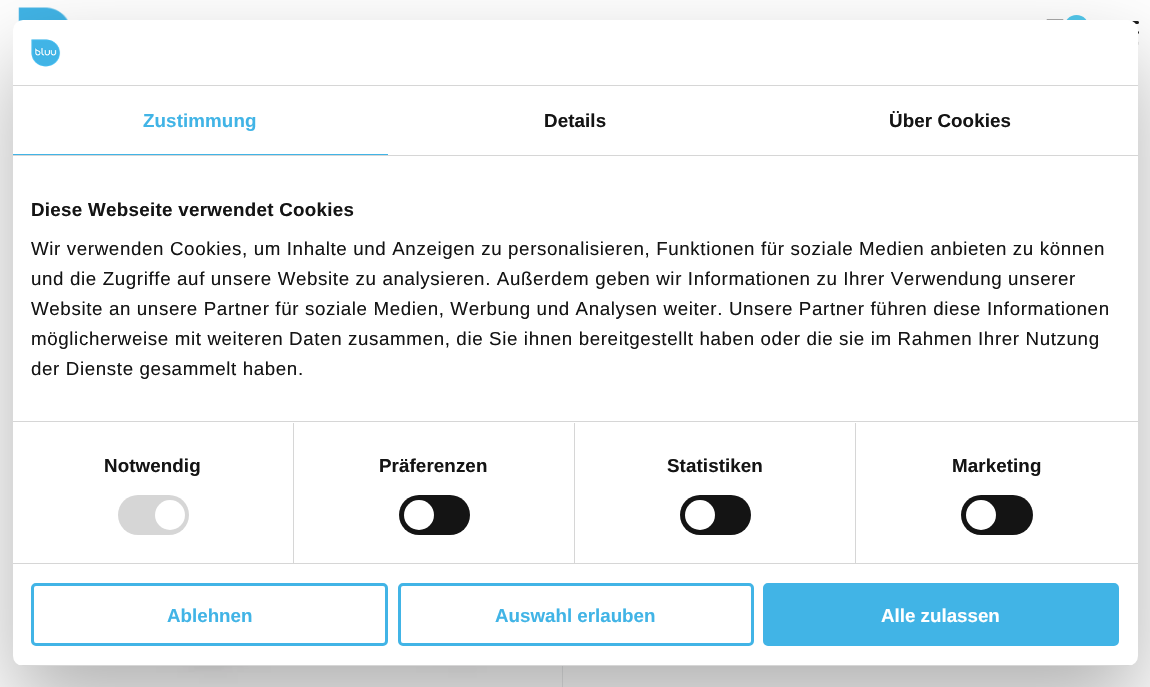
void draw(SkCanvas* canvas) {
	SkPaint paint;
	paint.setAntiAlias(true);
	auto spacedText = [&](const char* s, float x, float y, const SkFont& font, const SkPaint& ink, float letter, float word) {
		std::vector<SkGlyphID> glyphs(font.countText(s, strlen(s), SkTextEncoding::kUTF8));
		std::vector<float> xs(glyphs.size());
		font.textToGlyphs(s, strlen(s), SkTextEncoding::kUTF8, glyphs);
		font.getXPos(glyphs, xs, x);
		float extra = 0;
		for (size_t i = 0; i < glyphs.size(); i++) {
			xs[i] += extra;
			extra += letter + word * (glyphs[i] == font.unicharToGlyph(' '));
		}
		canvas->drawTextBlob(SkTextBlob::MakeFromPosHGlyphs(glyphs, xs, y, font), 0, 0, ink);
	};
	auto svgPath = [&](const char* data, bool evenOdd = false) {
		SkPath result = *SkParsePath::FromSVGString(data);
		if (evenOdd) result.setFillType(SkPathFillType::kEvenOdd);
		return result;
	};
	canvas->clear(0xffffffff);
	canvas->drawImageRect(SkImages::DeferredFromEncodedData(SkData::MakeFromFileName("img1.png")), SkRect::MakeXYWH(18, 7, 50, 15), SkSamplingOptions());
	canvas->drawImageRect(SkImages::DeferredFromEncodedData(SkData::MakeFromFileName("img2.png")), SkRect::MakeXYWH(1046, 19, 18, 1), SkSamplingOptions());
	paint.setColor(0xff52c8ec);
	canvas->drawCircle(1076.5, 27.5, 12.5, paint);
	canvas->drawImageRect(SkImages::DeferredFromEncodedData(SkData::MakeFromFileName("img3.png")), SkRect::MakeXYWH(1132, 21, 7, 24), SkSamplingOptions());
	paint.setColor(0xffe3e5e6);
	canvas->drawRect(SkRect::MakeXYWH(562, 666, 1, 21), paint);
	canvas->drawImageRect(SkImages::DeferredFromEncodedData(SkData::MakeFromFileName("img5.png")), SkRect::MakeXYWH(75, 666, 488, 21), SkSamplingOptions());
	canvas->drawImageRect(SkImages::DeferredFromEncodedData(SkData::MakeFromFileName("img6.png")), SkRect::MakeXYWH(588, 666, 487, 21), SkSamplingOptions());
	paint.setColor(0x4d000000);
	paint.setMaskFilter(SkMaskFilter::MakeBlur(kNormal_SkBlurStyle, 42.5));
	canvas->drawRoundRect(SkRect::MakeXYWH(13, 60, 1125, 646), 10, 10, paint);
	paint.setMaskFilter(nullptr);
	paint.setColor(0xffffffff);
	canvas->drawRoundRect(SkRect::MakeXYWH(13, 20, 1125, 646), 10, 10, paint);
	paint.setColor(0xffd6d6d6);
	canvas->drawRect(SkRect::MakeXYWH(13, 85, 1125, 1), paint);
	canvas->drawImageRect(SkImages::DeferredFromEncodedData(SkData::MakeFromFileName("img4.png")), SkRect::MakeXYWH(31, 39, 30, 28), SkSamplingOptions());
	canvas->drawRect(SkRect::MakeXYWH(13, 155, 1125, 1), paint);
	paint.setColor(0xff41b4e6);
	canvas->drawRect(SkRect::MakeXYWH(13, 154, 375, 1), paint);
	SkFont f1(fontMgr->matchFamilyStyle("Liberation Sans", SkFontStyle::Bold()), 18.75);
	f1.setSubpixel(true);
	spacedText("Zustimmung", 143, 127, f1, paint, 0.1, 0);
	paint.setColor(0xff141414);
	spacedText("Details", 544, 127, f1, paint, 0.1, 0);
	spacedText("Über Cookies", 889, 127, f1, paint, 0.1, 0);
	paint.setColor(0xffd6d6d6);
	canvas->drawRect(SkRect::MakeXYWH(13, 421, 1125, 1), paint);
	paint.setColor(0xff141414);
	spacedText("Diese Webseite verwendet Cookies", 31, 216, f1, paint, 0.3, 0);
	SkFont f2(fontMgr->matchFamilyStyle("Liberation Sans", SkFontStyle::Normal()), 18.75);
	f2.setSubpixel(true);
	spacedText("Wir verwenden Cookies, um Inhalte und Anzeigen zu personalisieren, Funktionen für soziale Medien anbieten zu können", 31, 255, f2, paint, 0.62, 0);
	spacedText("und die Zugriffe auf unsere Website zu analysieren. Außerdem geben wir Informationen zu Ihrer Verwendung unserer", 31, 285, f2, paint, 0.62, 0);
	spacedText("Website an unsere Partner für soziale Medien, Werbung und Analysen weiter. Unsere Partner führen diese Informationen", 31, 315, f2, paint, 0.62, 0);
	spacedText("möglicherweise mit weiteren Daten zusammen, die Sie ihnen bereitgestellt haben oder die sie im Rahmen Ihrer Nutzung", 31, 345, f2, paint, 0.62, 0);
	spacedText("der Dienste gesammelt haben.", 31, 375, f2, paint, 0.62, 0);
	paint.setColor(0xffd6d6d6);
	canvas->drawRect(SkRect::MakeXYWH(13, 563, 1125, 1), paint);
	canvas->drawRect(SkRect::MakeXYWH(293, 423, 1, 140), paint);
	paint.setColor(0xff141414);
	spacedText("Notwendig", 104, 472, f1, paint, 0.1, 0);
	paint.setColor(0xffd6d6d6);
	canvas->drawRoundRect(SkRect::MakeXYWH(118, 495, 71, 40), 20, 20, paint);
	paint.setColor(0xffffffff);
	canvas->drawCircle(170, 515, 15, paint);
	paint.setColor(0xffd6d6d6);
	canvas->drawRect(SkRect::MakeXYWH(574, 423, 1, 140), paint);
	paint.setColor(0xff141414);
	spacedText("Präferenzen", 379, 472, f1, paint, 0.1, 0);
	canvas->drawRoundRect(SkRect::MakeXYWH(399, 495, 71, 40), 20, 20, paint);
	paint.setColor(0xffffffff);
	canvas->drawCircle(419, 515, 15, paint);
	paint.setColor(0xffd6d6d6);
	canvas->drawRect(SkRect::MakeXYWH(855, 423, 1, 140), paint);
	paint.setColor(0xff141414);
	spacedText("Statistiken", 667, 472, f1, paint, 0.1, 0);
	canvas->drawRoundRect(SkRect::MakeXYWH(680, 495, 71, 40), 20, 20, paint);
	paint.setColor(0xffffffff);
	canvas->drawCircle(700, 515, 15, paint);
	paint.setColor(0xff141414);
	spacedText("Marketing", 952, 472, f1, paint, 0.1, 0);
	canvas->drawRoundRect(SkRect::MakeXYWH(961, 495, 72, 40), 20, 20, paint);
	paint.setColor(0xffffffff);
	canvas->drawCircle(981, 515, 15, paint);
	canvas->save();
	canvas->clipPath(svgPath("M23 20H1128C1133.5 20 1138 24.5 1138 30V656C1138 661.5 1133.5 666 1128 666H23C17.5 666 13 661.5 13 656V30C13 24.5 17.5 20 23 20Z"), true);
	paint.setColor(0xffd6d6d6);
	canvas->drawRect(SkRect::MakeXYWH(13, 665, 1125, 1), paint);
	canvas->restore();
	paint.setStroke(true);
	paint.setStrokeWidth(3);
	paint.setColor(0xff41b4e6);
	canvas->drawRoundRect(SkRect::MakeXYWH(32.5, 584.5, 354, 60), 3.5, 3.5, paint);
	paint.setStroke(false);
	canvas->drawString("Ablehnen", 167, 622, f1, paint);
	paint.setStroke(true);
	canvas->drawRoundRect(SkRect::MakeXYWH(399.5, 584.5, 353, 60), 3.5, 3.5, paint);
	paint.setStroke(false);
	canvas->drawString("Auswahl erlauben", 495, 622, f1, paint);
	canvas->drawRoundRect(SkRect::MakeXYWH(764.5, 584.5, 353, 60), 3.5, 3.5, paint);
	paint.setStroke(true);
	canvas->drawRoundRect(SkRect::MakeXYWH(764.5, 584.5, 353, 60), 3.5, 3.5, paint);
	paint.setStroke(false);
	paint.setColor(0xffffffff);
	canvas->drawString("Alle zulassen", 881, 622, f1, paint);
}
